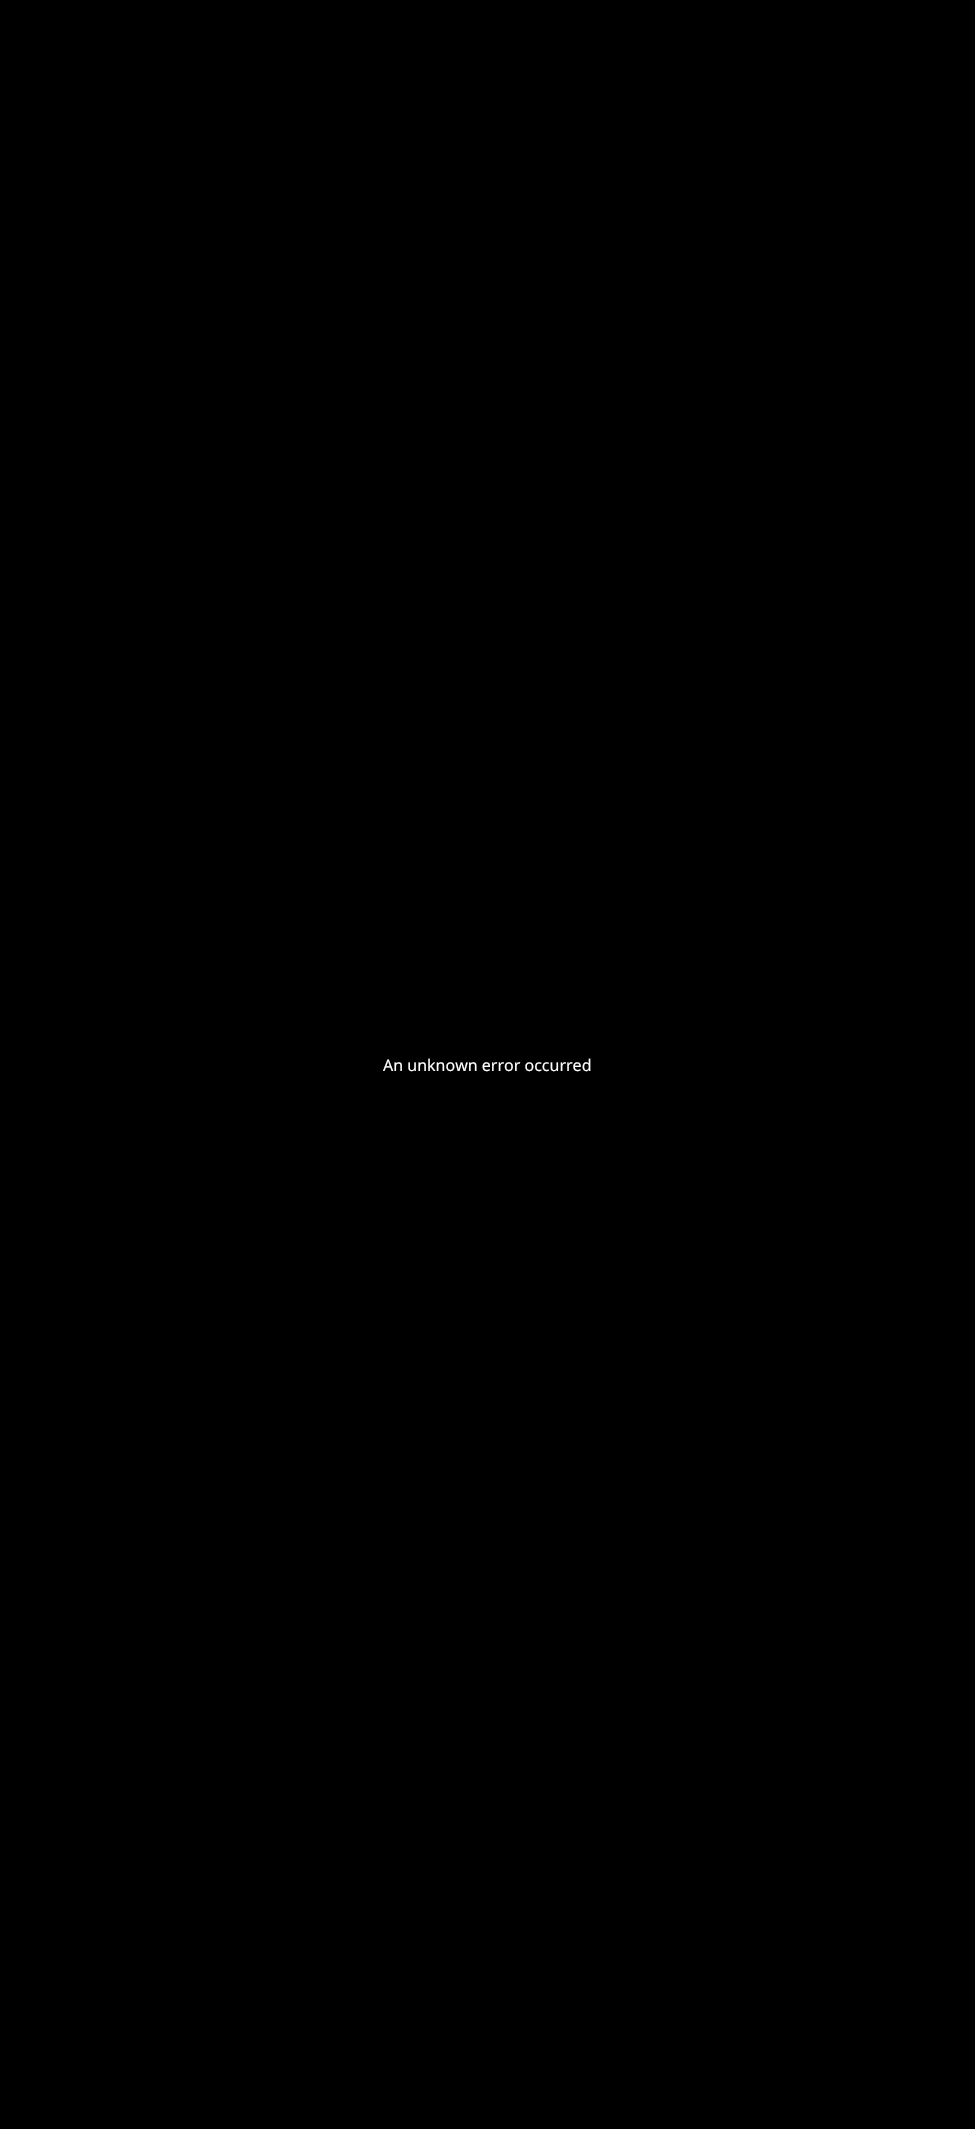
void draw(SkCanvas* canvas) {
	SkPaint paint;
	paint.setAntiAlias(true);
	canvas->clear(0xff000000);
	SkFont f1(fontMgr->matchFamilyStyle("Noto Sans", SkFontStyle::Normal()), 16);
	f1.setSubpixel(true);
	paint.setColor(0xffffffff);
	canvas->drawString("An unknown error occurred", 383, 1071, f1, paint);
}
